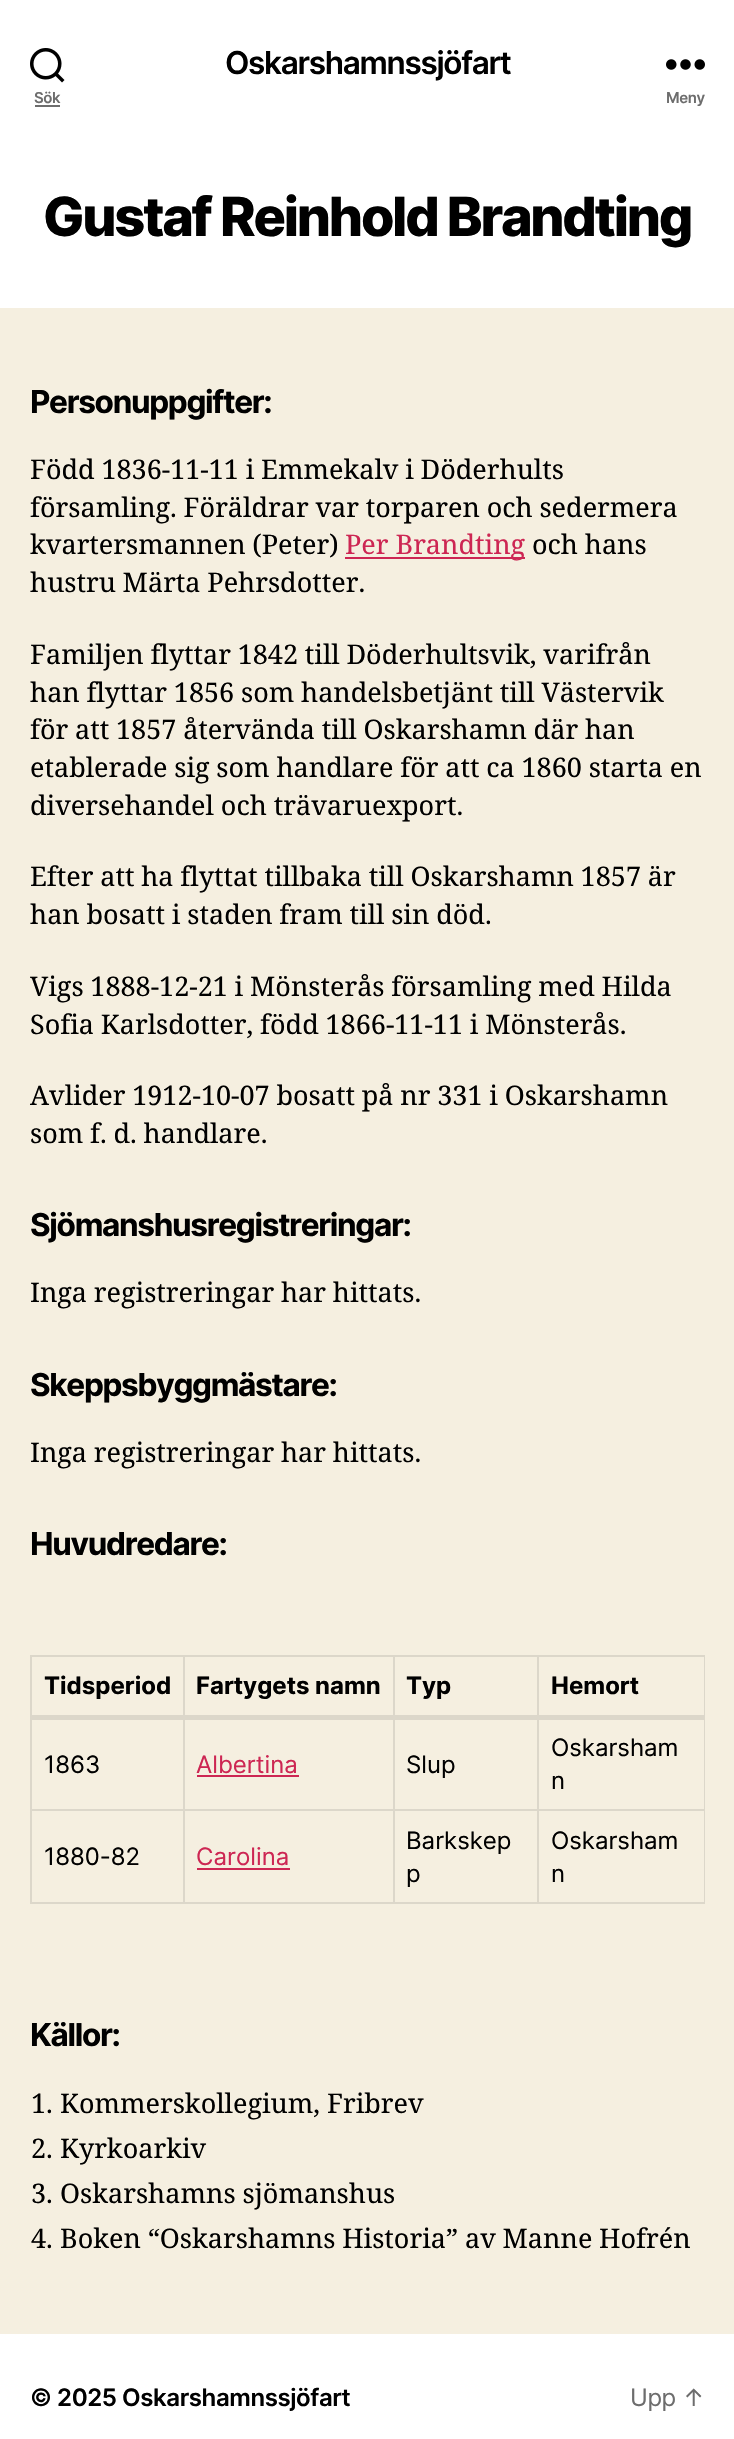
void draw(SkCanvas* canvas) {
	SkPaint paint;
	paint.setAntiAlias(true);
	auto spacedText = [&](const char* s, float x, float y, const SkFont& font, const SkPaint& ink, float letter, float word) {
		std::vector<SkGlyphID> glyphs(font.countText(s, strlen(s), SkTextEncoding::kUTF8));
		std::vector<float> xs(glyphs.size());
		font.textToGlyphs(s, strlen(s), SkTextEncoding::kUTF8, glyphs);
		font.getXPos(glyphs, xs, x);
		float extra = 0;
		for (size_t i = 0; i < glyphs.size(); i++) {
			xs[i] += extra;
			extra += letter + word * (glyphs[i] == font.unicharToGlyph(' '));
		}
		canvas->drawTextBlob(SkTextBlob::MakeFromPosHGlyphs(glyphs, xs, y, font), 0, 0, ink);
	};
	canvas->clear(0xfff5efe0);
	paint.setColor(0xffffffff);
	canvas->drawRect(SkRect::MakeXYWH(0, 0, 734, 308), paint);
	SkFont f1(fontMgr->matchFamilyStyle("Inter", SkFontStyle(600, SkFontStyle::kNormal_Width, SkFontStyle::kUpright_Slant)), 31.5);
	f1.setSubpixel(true);
	paint.setColor(0xff000000);
	spacedText("Oskarshamnssjöfart", 225, 74, f1, paint, -1.3, 0);
	canvas->drawImageRect(SkImages::DeferredFromEncodedData(SkData::MakeFromFileName("img1.png")), SkRect::MakeXYWH(30, 48, 35, 35), SkSamplingOptions());
	SkFont f2(fontMgr->matchFamilyStyle("Inter", SkFontStyle(600, SkFontStyle::kNormal_Width, SkFontStyle::kUpright_Slant)), 15);
	f2.setSubpixel(true);
	paint.setColor(0xff6d6d6d);
	spacedText("Sök", 34, 103, f2, paint, -0.4, 0);
	canvas->drawRect(SkRect::MakeXYWH(35, 105, 25, 2), paint);
	canvas->drawImageRect(SkImages::DeferredFromEncodedData(SkData::MakeFromFileName("img2.png")), SkRect::MakeXYWH(666, 59, 39, 11), SkSamplingOptions());
	spacedText("Meny", 666, 103, f2, paint, -0.4, 0);
	SkFont f3(fontMgr->matchFamilyStyle("Inter", SkFontStyle(800, SkFontStyle::kNormal_Width, SkFontStyle::kUpright_Slant)), 54);
	f3.setSubpixel(true);
	paint.setColor(0xff000000);
	spacedText("Gustaf Reinhold Brandting", 43, 236, f3, paint, -2.25, 0);
	SkFont f4(fontMgr->matchFamilyStyle("Inter", SkFontStyle::Bold()), 31.5);
	f4.setSubpixel(true);
	spacedText("Personuppgifter:", 30, 413, f4, paint, -1.3, 0);
	SkFont f5(fontMgr->matchFamilyStyle("Noto Serif", SkFontStyle::Normal()), 27);
	f5.setSubpixel(true);
	spacedText("Född 1836-11-11 i Emmekalv i Döderhults", 30, 479, f5, paint, 0, -0.25);
	spacedText("församling. Föräldrar var torparen och sedermera", 30, 517, f5, paint, 0, -0.25);
	spacedText("kvartersmannen (Peter)", 30, 554, f5, paint, 0, -0.25);
	paint.setColor(0xffcd2653);
	canvas->drawRect(SkRect::MakeXYWH(345, 557, 180, 2), paint);
	canvas->drawString("Per Brandting", 345, 554, f5, paint);
	paint.setColor(0xff000000);
	spacedText("och hans", 532, 554, f5, paint, 0, -0.25);
	spacedText("hustru Märta Pehrsdotter.", 30, 592, f5, paint, 0, -0.25);
	spacedText("Familjen flyttar 1842 till Döderhultsvik, varifrån", 30, 664, f5, paint, 0, -0.25);
	spacedText("han flyttar 1856 som handelsbetjänt till Västervik", 30, 702, f5, paint, 0, -0.25);
	spacedText("för att 1857 återvända till Oskarshamn där han", 30, 739, f5, paint, 0, -0.25);
	spacedText("etablerade sig som handlare för att ca 1860 starta en", 30, 777, f5, paint, 0, -0.25);
	canvas->drawString("diversehandel och trävaruexport.", 30, 815, f5, paint);
	spacedText("Efter att ha flyttat tillbaka till Oskarshamn 1857 är", 30, 886, f5, paint, 0, -0.25);
	spacedText("han bosatt i staden fram till sin död.", 30, 924, f5, paint, 0, -0.25);
	spacedText("Vigs 1888-12-21 i Mönsterås församling med Hilda", 30, 996, f5, paint, 0, -0.25);
	spacedText("Sofia Karlsdotter, född 1866-11-11 i Mönsterås.", 30, 1034, f5, paint, 0, -0.25);
	spacedText("Avlider 1912-10-07 bosatt på nr 331 i Oskarshamn", 30, 1105, f5, paint, 0, -0.25);
	spacedText("som f. d. handlare.", 30, 1143, f5, paint, 0, -0.25);
	spacedText("Sjömanshusregistreringar:", 30, 1236, f4, paint, -1.3, 0);
	spacedText("Inga registreringar har hittats.", 30, 1302, f5, paint, 0, -0.25);
	spacedText("Skeppsbyggmästare:", 30, 1396, f4, paint, -1.3, 0);
	spacedText("Inga registreringar har hittats.", 30, 1462, f5, paint, 0, -0.25);
	spacedText("Huvudredare:", 30, 1555, f4, paint, -1.3, 0);
	paint.setColor(0xffdcd7ca);
	canvas->drawRect(SkRect::MakeXYWH(30, 1655, 675, 2), paint);
	canvas->drawRect(SkRect::MakeXYWH(704, 1655, 1, 249), paint);
	canvas->drawRect(SkRect::MakeXYWH(30, 1902, 675, 2), paint);
	canvas->drawRect(SkRect::MakeXYWH(30, 1655, 2, 249), paint);
	canvas->drawRect(SkRect::MakeXYWH(537, 1809, 167, 2), paint);
	canvas->drawRect(SkRect::MakeXYWH(537, 1809, 2, 93), paint);
	canvas->drawRect(SkRect::MakeXYWH(393, 1809, 146, 2), paint);
	canvas->drawRect(SkRect::MakeXYWH(393, 1809, 2, 93), paint);
	canvas->drawRect(SkRect::MakeXYWH(183, 1809, 212, 2), paint);
	canvas->drawRect(SkRect::MakeXYWH(183, 1809, 2, 93), paint);
	canvas->drawRect(SkRect::MakeXYWH(32, 1809, 153, 2), paint);
	canvas->drawRect(SkRect::MakeXYWH(183, 1656, 2, 155), paint);
	canvas->drawRect(SkRect::MakeXYWH(393, 1656, 2, 155), paint);
	canvas->drawRect(SkRect::MakeXYWH(537, 1656, 2, 155), paint);
	canvas->drawRect(SkRect::MakeXYWH(32, 1715, 672, 5), paint);
	SkFont f6(fontMgr->matchFamilyStyle("Inter", SkFontStyle::Bold()), 24);
	f6.setSubpixel(true);
	paint.setColor(0xff000000);
	canvas->drawString("Tidsperiod", 44, 1694, f6, paint);
	canvas->drawString("Fartygets namn", 196, 1694, f6, paint);
	canvas->drawString("Typ", 406, 1694, f6, paint);
	canvas->drawString("Hemort", 551, 1694, f6, paint);
	SkFont f7(fontMgr->matchFamilyStyle("Inter", SkFontStyle::Normal()), 24);
	f7.setSubpixel(true);
	canvas->drawString("1863", 44, 1773, f7, paint);
	paint.setColor(0xffcd2653);
	canvas->drawString("Albertina", 196, 1773, f7, paint);
	canvas->drawRect(SkRect::MakeXYWH(197, 1775, 102, 2), paint);
	paint.setColor(0xff000000);
	canvas->drawString("Slup", 406, 1773, f7, paint);
	canvas->drawString("Oskarsham", 551, 1756, f7, paint);
	canvas->drawString("n", 551, 1789, f7, paint);
	canvas->drawString("1880-82", 44, 1865, f7, paint);
	paint.setColor(0xffcd2653);
	canvas->drawString("Carolina", 196, 1865, f7, paint);
	canvas->drawRect(SkRect::MakeXYWH(197, 1868, 93, 2), paint);
	paint.setColor(0xff000000);
	canvas->drawString("Barkskep", 406, 1849, f7, paint);
	canvas->drawString("p", 406, 1882, f7, paint);
	canvas->drawString("Oskarsham", 551, 1849, f7, paint);
	canvas->drawString("n", 551, 1882, f7, paint);
	spacedText("Källor:", 30, 2046, f4, paint, -1.3, 0);
	canvas->drawString("1.", 31, 2113, f5, paint);
	canvas->drawString("Kommerskollegium, Fribrev", 60, 2113, f5, paint);
	canvas->drawString("2.", 31, 2158, f5, paint);
	canvas->drawString("Kyrkoarkiv", 60, 2158, f5, paint);
	canvas->drawString("3.", 31, 2203, f5, paint);
	canvas->drawString("Oskarshamns sjömanshus", 60, 2203, f5, paint);
	canvas->drawString("4.", 31, 2248, f5, paint);
	spacedText("Boken “Oskarshamns Historia” av Manne Hofrén", 60, 2248, f5, paint, 0, -0.25);
	paint.setColor(0xffffffff);
	canvas->drawRect(SkRect::MakeXYWH(0, 2334, 734, 105), paint);
	SkFont f8(fontMgr->matchFamilyStyle("Inter", SkFontStyle(600, SkFontStyle::kNormal_Width, SkFontStyle::kUpright_Slant)), 24);
	f8.setSubpixel(true);
	paint.setColor(0xff000000);
	spacedText("© 2025 Oskarshamnssjöfart", 30, 2406, f8, paint, -0.4, 0);
	paint.setColor(0xff6d6d6d);
	spacedText("Upp ↑", 630, 2406, f7, paint, -0.4, 0);
}
